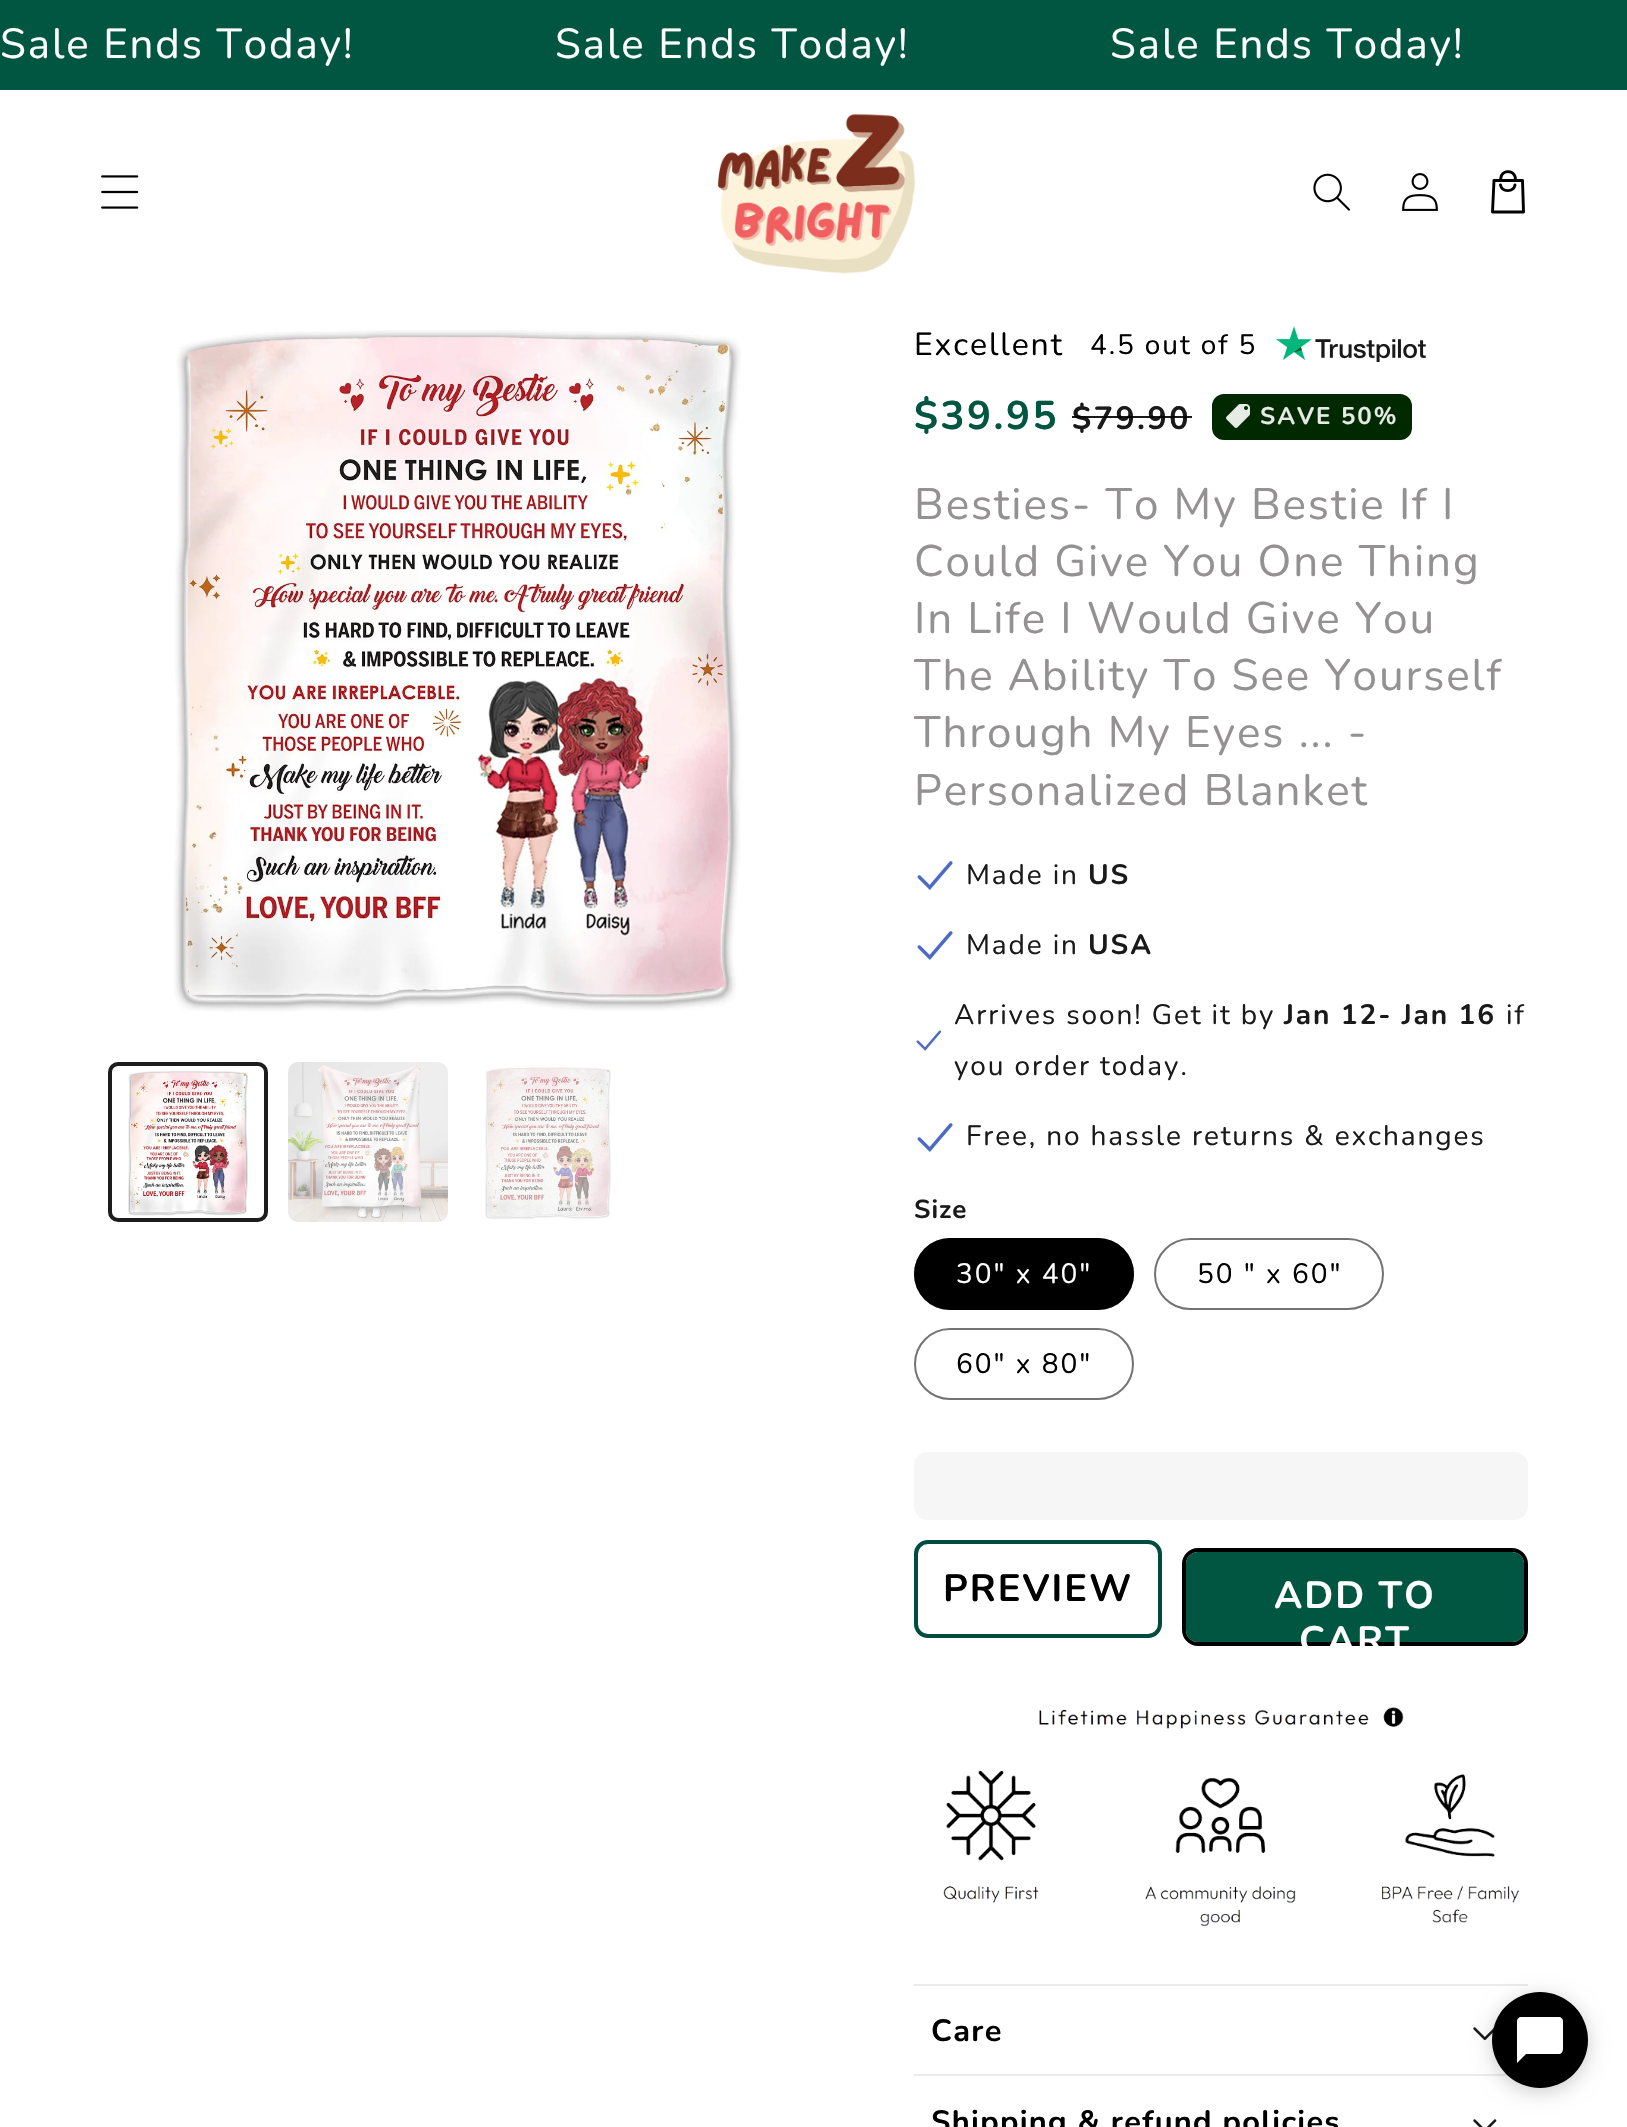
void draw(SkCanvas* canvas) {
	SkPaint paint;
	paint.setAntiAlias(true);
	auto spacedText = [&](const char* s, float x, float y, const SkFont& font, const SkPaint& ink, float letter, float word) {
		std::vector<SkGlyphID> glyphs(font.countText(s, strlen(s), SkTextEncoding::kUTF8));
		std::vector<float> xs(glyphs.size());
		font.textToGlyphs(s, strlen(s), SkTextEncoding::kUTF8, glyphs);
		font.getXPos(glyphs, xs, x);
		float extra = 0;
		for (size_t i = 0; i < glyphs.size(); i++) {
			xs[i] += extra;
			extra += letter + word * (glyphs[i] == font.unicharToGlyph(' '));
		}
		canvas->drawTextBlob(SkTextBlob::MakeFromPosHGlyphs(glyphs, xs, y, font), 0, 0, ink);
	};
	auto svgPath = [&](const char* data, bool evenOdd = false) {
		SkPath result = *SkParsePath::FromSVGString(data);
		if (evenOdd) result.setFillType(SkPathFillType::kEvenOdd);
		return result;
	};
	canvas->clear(0xffffffff);
	paint.setColor(0xff015641);
	canvas->drawRect(SkRect::MakeXYWH(0, 0, 1627, 90), paint);
	SkFont f1(fontMgr->matchFamilyStyle("Nunito", SkFontStyle::Normal()), 42);
	f1.setSubpixel(true);
	paint.setColor(0xffffffff);
	spacedText("Sale Ends Today!", 0, 58, f1, paint, 1.9, 0);
	spacedText("Sale Ends Today!", 555, 58, f1, paint, 1.9, 0);
	spacedText("Sale Ends Today!", 1110, 58, f1, paint, 1.9, 0);
	canvas->drawImageRect(SkImages::DeferredFromEncodedData(SkData::MakeFromFileName("img1.png")), SkRect::MakeXYWH(101, 175, 38, 34), SkSamplingOptions());
	canvas->drawImageRect(SkImages::DeferredFromEncodedData(SkData::MakeFromFileName("img2.png")), SkRect::MakeXYWH(717, 114, 199, 160), SkSamplingOptions());
	canvas->drawImageRect(SkImages::DeferredFromEncodedData(SkData::MakeFromFileName("img3.png")), SkRect::MakeXYWH(1313, 173, 37, 38), SkSamplingOptions());
	canvas->drawImageRect(SkImages::DeferredFromEncodedData(SkData::MakeFromFileName("img4.png")), SkRect::MakeXYWH(1402, 173, 36, 38), SkSamplingOptions());
	paint.setStroke(true);
	paint.setStrokeWidth(2.9);
	paint.setStrokeCap(SkPaint::kRound_Cap);
	paint.setStrokeJoin(SkPaint::kRound_Join);
	paint.setColor(0xff000000);
	canvas->drawPath(svgPath("M1494 180.5H1522.5L1523.5 212H1492.5ZM1500.5 180.5C1500.5 179 1501 177 1501.5 175.5C1504.5 170 1513 170.5 1515 176.5C1515.5 178 1515.5 179 1515.5 180.5M1500.5 185C1502 192.5 1513.5 192.5 1515 185"), paint);
	canvas->drawImageRect(SkImages::DeferredFromEncodedData(SkData::MakeFromFileName("img5.png")), SkRect::MakeXYWH(174, 330, 567, 682), SkSamplingOptions());
	paint.setStrokeWidth(4);
	paint.setStrokeCap(SkPaint::kButt_Cap);
	paint.setStrokeJoin(SkPaint::kMiter_Join);
	paint.setColor(0xff1d1d1d);
	canvas->drawRoundRect(SkRect::MakeXYWH(110, 1064, 156, 156), 8, 8, paint);
	canvas->drawImageRect(SkImages::DeferredFromEncodedData(SkData::MakeFromFileName("img6.png")), SkRect::MakeXYWH(128, 1070, 120, 146), SkSamplingOptions());
	canvas->drawImageRect(SkImages::DeferredFromEncodedData(SkData::MakeFromFileName("img7.png")), SkRect::MakeXYWH(288, 1062, 160, 160), SkSamplingOptions());
	canvas->drawImageRect(SkImages::DeferredFromEncodedData(SkData::MakeFromFileName("img8.png")), SkRect::MakeXYWH(485, 1067, 126, 153), SkSamplingOptions());
	SkFont f2(fontMgr->matchFamilyStyle("Nunito", SkFontStyle::Normal()), 32);
	f2.setSubpixel(true);
	paint.setStroke(false);
	paint.setColor(0xff000000);
	spacedText("Excellent", 914, 355, f2, paint, 1.9, 0);
	SkFont f3(fontMgr->matchFamilyStyle("Nunito", SkFontStyle::Normal()), 28);
	f3.setSubpixel(true);
	spacedText("4.5 out of 5", 1090, 354, f3, paint, 1.9, 0);
	canvas->drawImageRect(SkImages::DeferredFromEncodedData(SkData::MakeFromFileName("img9.png")), SkRect::MakeXYWH(1276, 326, 150, 36), SkSamplingOptions());
	SkFont f4(fontMgr->matchFamilyStyle("Nunito", SkFontStyle::Bold()), 40);
	f4.setSubpixel(true);
	paint.setColor(0xff015641);
	spacedText("$39.95", 914, 429, f4, paint, 2.5, 0);
	SkFont f5(fontMgr->matchFamilyStyle("Nunito", SkFontStyle::Bold()), 32);
	f5.setSubpixel(true);
	paint.setColor(0xff1a1a1a);
	spacedText("$79.90", 1072, 429, f5, paint, 2.5, 0);
	paint.setColor(0xe6000000);
	canvas->drawRect(SkRect::MakeXYWH(1072, 416, 120, 2), paint);
	paint.setColor(0xff012900);
	canvas->drawRoundRect(SkRect::MakeXYWH(1213, 395, 198, 44), 11, 11, paint);
	paint.setStroke(true);
	paint.setStrokeWidth(2);
	canvas->drawRoundRect(SkRect::MakeXYWH(1213, 395, 198, 44), 11, 11, paint);
	canvas->drawImageRect(SkImages::DeferredFromEncodedData(SkData::MakeFromFileName("img10.png")), SkRect::MakeXYWH(1226, 404, 24, 24), SkSamplingOptions());
	SkFont f6(fontMgr->matchFamilyStyle("Nunito", SkFontStyle::Bold()), 24);
	f6.setSubpixel(true);
	paint.setStroke(false);
	paint.setColor(0xffe6eae6);
	spacedText("SAVE 50%", 1260, 424, f6, paint, 2, 0);
	SkFont f7(fontMgr->matchFamilyStyle("Nunito", SkFontStyle::Normal()), 44);
	f7.setSubpixel(true);
	paint.setColor(0xff939191);
	spacedText("Besties- To My Bestie If I", 914, 519, f7, paint, 1.9, 0);
	spacedText("Could Give You One Thing", 914, 576, f7, paint, 1.9, 0);
	spacedText("In Life I Would Give You", 914, 633, f7, paint, 1.9, 0);
	spacedText("The Ability To See Yourself", 914, 690, f7, paint, 1.9, 0);
	spacedText("Through My Eyes ... -", 914, 747, f7, paint, 1.9, 0);
	spacedText("Personalized Blanket", 914, 805, f7, paint, 1.9, 0);
	canvas->drawImageRect(SkImages::DeferredFromEncodedData(SkData::MakeFromFileName("img11.png")), SkRect::MakeXYWH(917, 861, 36, 29), SkSamplingOptions());
	paint.setColor(0xff1a1a1a);
	spacedText("Made in", 966, 884, f3, paint, 1.9, 0);
	SkFont f8(fontMgr->matchFamilyStyle("Nunito", SkFontStyle::Bold()), 28);
	f8.setSubpixel(true);
	spacedText("US", 1088, 884, f8, paint, 1.9, 0);
	canvas->drawImageRect(SkImages::DeferredFromEncodedData(SkData::MakeFromFileName("img11.png")), SkRect::MakeXYWH(917, 931, 36, 29), SkSamplingOptions());
	spacedText("Made in", 966, 954, f3, paint, 1.9, 0);
	spacedText("USA", 1088, 954, f8, paint, 1.9, 0);
	canvas->drawImageRect(SkImages::DeferredFromEncodedData(SkData::MakeFromFileName("img12.png")), SkRect::MakeXYWH(916, 1030, 26, 21), SkSamplingOptions());
	spacedText("Arrives soon! Get it by", 954, 1024, f3, paint, 1.9, 0);
	spacedText("Jan 12- Jan 16", 1284, 1024, f8, paint, 1.9, 0);
	spacedText("if", 1506, 1024, f3, paint, 1.9, 0);
	spacedText("you order today.", 954, 1075, f3, paint, 1.9, 0);
	canvas->drawImageRect(SkImages::DeferredFromEncodedData(SkData::MakeFromFileName("img11.png")), SkRect::MakeXYWH(917, 1123, 36, 29), SkSamplingOptions());
	spacedText("Free, no hassle returns & exchanges", 966, 1145, f3, paint, 1.9, 0);
	SkFont f9(fontMgr->matchFamilyStyle("Nunito", SkFontStyle::Bold()), 26);
	f9.setSubpixel(true);
	spacedText("Size", 914, 1218, f9, paint, 1, 0);
	paint.setColor(0xff000000);
	canvas->drawRoundRect(SkRect::MakeXYWH(914, 1238, 220, 72), 36, 36, paint);
	paint.setStroke(true);
	paint.setColor(0x8c000000);
	canvas->drawRoundRect(SkRect::MakeXYWH(915, 1239, 218, 70), 35, 35, paint);
	paint.setStroke(false);
	paint.setColor(0xffffffff);
	spacedText("30\" x 40\"", 956, 1283, f3, paint, 2, 0);
	paint.setStroke(true);
	paint.setColor(0xff737373);
	canvas->drawRoundRect(SkRect::MakeXYWH(1155, 1239, 228, 70), 35, 35, paint);
	paint.setStroke(false);
	paint.setColor(0xff000000);
	spacedText("50 \" x 60\"", 1197, 1283, f3, paint, 2, 0);
	paint.setStroke(true);
	paint.setColor(0xff737373);
	canvas->drawRoundRect(SkRect::MakeXYWH(915, 1329, 218, 70), 35, 35, paint);
	paint.setStroke(false);
	paint.setColor(0xff000000);
	spacedText("60\" x 80\"", 956, 1373, f3, paint, 2, 0);
	paint.setColor(0xfff6f6f6);
	canvas->drawRoundRect(SkRect::MakeXYWH(914, 1452, 614, 68), 14, 14, paint);
	paint.setStroke(true);
	paint.setStrokeWidth(4);
	paint.setColor(0xff004c3f);
	canvas->drawRoundRect(SkRect::MakeXYWH(916, 1542, 244, 94), 12, 12, paint);
	SkFont f10(fontMgr->matchFamilyStyle("Nunito", SkFontStyle::Bold()), 38);
	f10.setSubpixel(true);
	paint.setStroke(false);
	paint.setColor(0xff000000);
	spacedText("PREVIEW", 943, 1601, f10, paint, 2, 0);
	paint.setStroke(true);
	canvas->drawRoundRect(SkRect::MakeXYWH(1184, 1550, 342, 94), 14, 14, paint);
	paint.setColor(0xff015641);
	canvas->drawRoundRect(SkRect::MakeXYWH(1188, 1554, 334, 86), 14, 14, paint);
	paint.setStroke(false);
	canvas->drawRoundRect(SkRect::MakeXYWH(1186, 1552, 338, 90), 12, 12, paint);
	paint.setColor(0xffffffff);
	spacedText("ADD TO", 1274, 1608, f10, paint, 2, 0);
	spacedText("CART", 1299, 1653, f10, paint, 2, 0);
	canvas->drawImageRect(SkImages::DeferredFromEncodedData(SkData::MakeFromFileName("img13.png")), SkRect::MakeXYWH(943, 1707, 576, 219), SkSamplingOptions());
	paint.setColor(0xffebebeb);
	canvas->drawRect(SkRect::MakeXYWH(914, 1984, 614, 2), paint);
	canvas->drawRect(SkRect::MakeXYWH(914, 2074, 595, 2), paint);
	SkFont f11(fontMgr->matchFamilyStyle("Nunito", SkFontStyle::Bold()), 30.75);
	f11.setSubpixel(true);
	paint.setColor(0xff000000);
	spacedText("Care", 931, 2041, f11, paint, 1.3, 0);
	canvas->drawImageRect(SkImages::DeferredFromEncodedData(SkData::MakeFromFileName("img14.png")), SkRect::MakeXYWH(1473, 2027, 21, 14), SkSamplingOptions());
	spacedText("Shipping & refund policies", 931, 2132, f11, paint, 1.3, 0);
	canvas->drawImageRect(SkImages::DeferredFromEncodedData(SkData::MakeFromFileName("img15.png")), SkRect::MakeXYWH(1473, 2119, 24, 8), SkSamplingOptions());
	paint.setColor(0x33000000);
	paint.setMaskFilter(SkMaskFilter::MakeBlur(kNormal_SkBlurStyle, 10));
	canvas->drawRoundRect(SkRect::MakeXYWH(1492, 1996, 96, 96), 48, 48, paint);
	paint.setMaskFilter(nullptr);
	paint.setColor(0xff000000);
	canvas->drawCircle(1540, 2040, 48, paint);
	paint.setColor(0xffffffff);
	canvas->drawPath(svgPath("M1559 2017H1521C1519 2017 1517 2019 1517 2021V2063L1526 2054H1559C1561 2054 1563 2052 1563 2049V2021C1563 2019 1561 2017 1559 2017Z"), paint);
}
